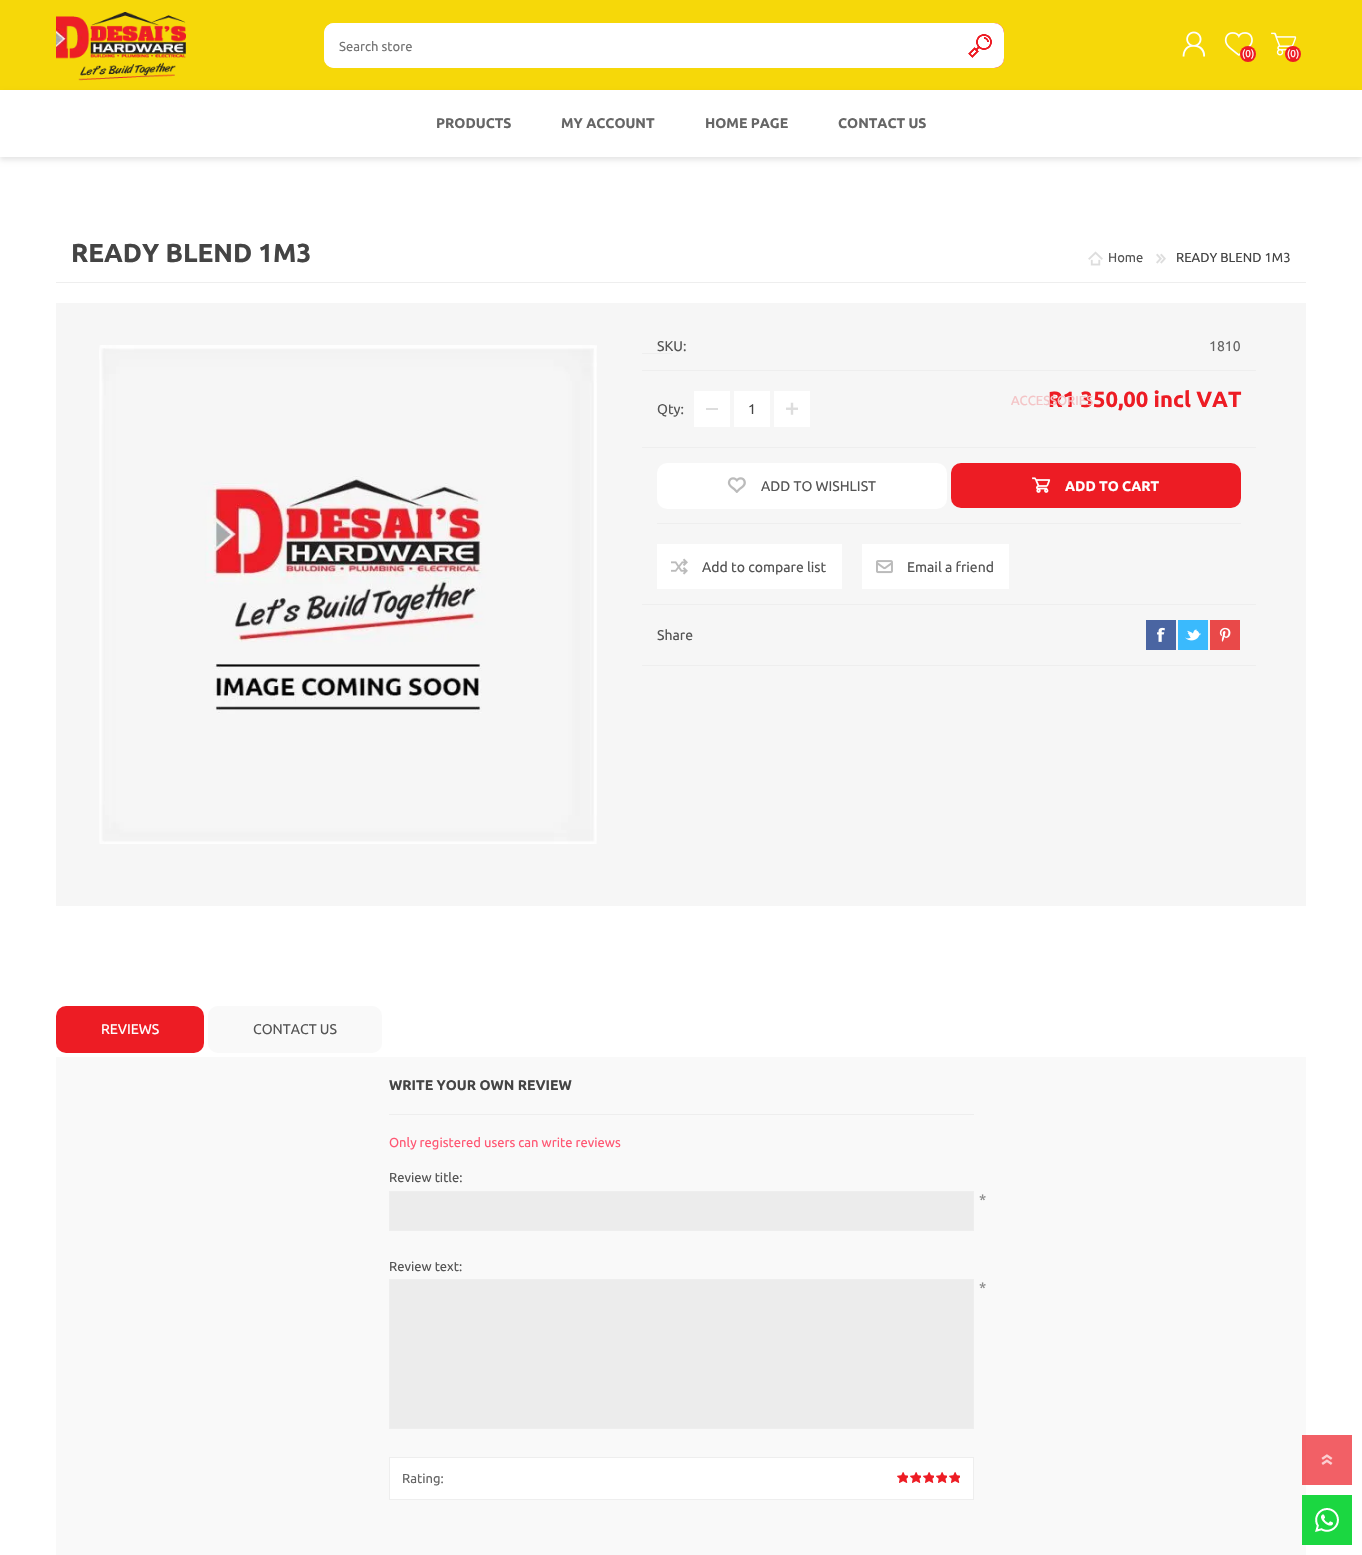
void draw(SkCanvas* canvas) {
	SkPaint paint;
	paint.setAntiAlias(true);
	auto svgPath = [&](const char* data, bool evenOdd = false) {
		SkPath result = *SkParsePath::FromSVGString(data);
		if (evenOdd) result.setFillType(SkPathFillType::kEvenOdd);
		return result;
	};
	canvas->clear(0xffffffff);
	paint.setColor(0xfff26066);
	canvas->drawRect(SkRect::MakeXYWH(1306, 1435, 46, 50), paint);
	paint.setColor(0xfff6d809);
	canvas->drawRect(SkRect::MakeXYWH(0, 0, 1362, 90), paint);
	canvas->drawImageRect(SkImages::DeferredFromEncodedData(SkData::MakeFromFileName("img1.png")), SkRect::MakeXYWH(56, 12, 130, 69), SkSamplingOptions());
	paint.setColor(0xffffffff);
	canvas->drawRoundRect(SkRect::MakeXYWH(324, 23, 680, 45), 10, 10, paint);
	canvas->drawRoundRect(SkRect::MakeXYWH(324, 23, 635, 45), 10, 10, paint);
	SkFont f1(fontMgr->matchFamilyStyle("Ubuntu", SkFontStyle::Normal()), 13);
	f1.setSubpixel(true);
	paint.setColor(0xff757575);
	canvas->drawString("Search store", 339, 51, f1, paint);
	paint.setColor(0xffed1c24);
	canvas->drawPath(svgPath("M959 23H994C999.5 23 1004 27.5 1004 33V58C1004 63.5 999.5 68 994 68H959Z"), paint);
	canvas->drawImageRect(SkImages::DeferredFromEncodedData(SkData::MakeFromFileName("img2.png")), SkRect::MakeXYWH(959, 23, 45, 45), SkSamplingOptions());
	canvas->drawImageRect(SkImages::DeferredFromEncodedData(SkData::MakeFromFileName("img3.png")), SkRect::MakeXYWH(1182, 31, 24, 26), SkSamplingOptions());
	canvas->drawImageRect(SkImages::DeferredFromEncodedData(SkData::MakeFromFileName("img4.png")), SkRect::MakeXYWH(1224, 32, 29, 24), SkSamplingOptions());
	canvas->drawCircle(1248, 54, 8, paint);
	SkFont f2(fontMgr->matchFamilyStyle("Ubuntu", SkFontStyle::Normal()), 10);
	f2.setSubpixel(true);
	paint.setColor(0xffffffff);
	canvas->drawString("(0)", 1242, 57, f2, paint);
	canvas->drawImageRect(SkImages::DeferredFromEncodedData(SkData::MakeFromFileName("img5.png")), SkRect::MakeXYWH(1271, 32, 26, 24), SkSamplingOptions());
	paint.setColor(0xffed1c24);
	canvas->drawCircle(1293, 54, 8, paint);
	paint.setColor(0xffffffff);
	canvas->drawString("(0)", 1287, 57, f2, paint);
	paint.setColor(0x1a000000);
	paint.setMaskFilter(SkMaskFilter::MakeBlur(kNormal_SkBlurStyle, 2.5));
	canvas->drawRect(SkRect::MakeXYWH(0, 93, 1362, 67), paint);
	paint.setMaskFilter(nullptr);
	paint.setColor(0xffffffff);
	canvas->drawRect(SkRect::MakeXYWH(0, 90, 1362, 67), paint);
	SkFont f3(fontMgr->matchFamilyStyle("Ubuntu", SkFontStyle::Bold()), 14);
	f3.setSubpixel(true);
	paint.setColor(0xff666666);
	canvas->drawString("PRODUCTS", 436, 128, f3, paint);
	paint.setColor(0xfff6f6f6);
	canvas->drawRect(SkRect::MakeXYWH(56, 303, 1250, 603), paint);
	SkFont f4(fontMgr->matchFamilyStyle("Ubuntu", SkFontStyle::Bold()), 22);
	f4.setSubpixel(true);
	paint.setColor(0xffed1c24);
	canvas->drawString("R1 350,00 incl VAT", 1048, 407, f4, paint);
	paint.setColor(0xfff4c4c6);
	canvas->drawString("ACCESSORIES", 1011, 405, f1, paint);
	paint.setColor(0xff666666);
	canvas->drawString("MY ACCOUNT", 561, 128, f3, paint);
	canvas->drawString("HOME PAGE", 705, 128, f3, paint);
	canvas->drawString("CONTACT US", 838, 128, f3, paint);
	paint.setColor(0xffeeeeee);
	canvas->drawRect(SkRect::MakeXYWH(56, 282, 1250, 1), paint);
	SkFont f5(fontMgr->matchFamilyStyle("Ubuntu", SkFontStyle::Bold()), 26);
	f5.setSubpixel(true);
	paint.setColor(0xff444444);
	canvas->drawString("READY BLEND 1M3", 71, 262, f5, paint);
	canvas->drawImageRect(SkImages::DeferredFromEncodedData(SkData::MakeFromFileName("img6.png")), SkRect::MakeXYWH(1088, 251, 15, 15), SkSamplingOptions());
	paint.setColor(0xff555555);
	canvas->drawString("Home", 1108, 262, f1, paint);
	canvas->drawImageRect(SkImages::DeferredFromEncodedData(SkData::MakeFromFileName("img7.png")), SkRect::MakeXYWH(1156, 253, 10, 11), SkSamplingOptions());
	paint.setColor(0xff444444);
	canvas->drawString("READY BLEND 1M3", 1176, 262, f1, paint);
	canvas->drawImageRect(SkImages::DeferredFromEncodedData(SkData::MakeFromFileName("img8.png")), SkRect::MakeXYWH(99, 345, 498, 499), SkSamplingOptions());
	paint.setColor(0xffeeeeee);
	canvas->drawRect(SkRect::MakeXYWH(642, 370, 614, 1), paint);
	SkFont f6(fontMgr->matchFamilyStyle("Ubuntu", SkFontStyle::Normal()), 14);
	f6.setSubpixel(true);
	paint.setColor(0xff555555);
	canvas->drawString("SKU:", 657, 351, f6, paint);
	paint.setColor(0xff666666);
	canvas->drawString("1810", 1209, 351, f6, paint);
	paint.setColor(0xffeeeeee);
	canvas->drawRect(SkRect::MakeXYWH(642, 353, 30, 1), paint);
	paint.setColor(0xff555555);
	canvas->drawString("Qty:", 657, 414, f6, paint);
	paint.setColor(0xffffffff);
	canvas->drawRect(SkRect::MakeXYWH(694, 391, 36, 36), paint);
	paint.setColor(0xffdddddd);
	canvas->drawRect(SkRect::MakeXYWH(706, 408, 12, 2), paint);
	paint.setColor(0xffffffff);
	canvas->drawRect(SkRect::MakeXYWH(734, 391, 36, 36), paint);
	paint.setColor(0xff444444);
	canvas->drawString("1", 748, 414, f6, paint);
	paint.setColor(0xffffffff);
	canvas->drawRect(SkRect::MakeXYWH(774, 391, 36, 36), paint);
	canvas->drawImageRect(SkImages::DeferredFromEncodedData(SkData::MakeFromFileName("img9.png")), SkRect::MakeXYWH(786, 402, 12, 13), SkSamplingOptions());
	paint.setColor(0xffeeeeee);
	canvas->drawRect(SkRect::MakeXYWH(642, 447, 614, 1), paint);
	canvas->drawRect(SkRect::MakeXYWH(642, 604, 614, 1), paint);
	paint.setColor(0xffffffff);
	canvas->drawRoundRect(SkRect::MakeXYWH(657, 463, 290, 46), 10, 10, paint);
	canvas->drawImageRect(SkImages::DeferredFromEncodedData(SkData::MakeFromFileName("img10.png")), SkRect::MakeXYWH(727, 477, 19, 16), SkSamplingOptions());
	paint.setColor(0xff555555);
	canvas->drawString("ADD TO WISHLIST", 761, 491, f6, paint);
	paint.setColor(0xffed1c24);
	canvas->drawRoundRect(SkRect::MakeXYWH(951, 463, 290, 45), 10, 10, paint);
	canvas->drawImageRect(SkImages::DeferredFromEncodedData(SkData::MakeFromFileName("img11.png")), SkRect::MakeXYWH(1032, 477, 19, 16), SkSamplingOptions());
	paint.setColor(0xffffffff);
	canvas->drawString("ADD TO CART", 1065, 491, f3, paint);
	paint.setColor(0xffeeeeee);
	canvas->drawRect(SkRect::MakeXYWH(657, 523, 584, 1), paint);
	paint.setColor(0xffffffff);
	canvas->drawRect(SkRect::MakeXYWH(657, 544, 185, 45), paint);
	canvas->drawImageRect(SkImages::DeferredFromEncodedData(SkData::MakeFromFileName("img12.png")), SkRect::MakeXYWH(671, 558, 17, 17), SkSamplingOptions());
	paint.setColor(0xff555555);
	canvas->drawString("Add to compare list", 702, 572, f6, paint);
	paint.setColor(0xffffffff);
	canvas->drawRect(SkRect::MakeXYWH(862, 544, 147, 45), paint);
	canvas->drawImageRect(SkImages::DeferredFromEncodedData(SkData::MakeFromFileName("img13.png")), SkRect::MakeXYWH(876, 560, 17, 14), SkSamplingOptions());
	paint.setColor(0xff555555);
	canvas->drawString("Email a friend", 907, 572, f6, paint);
	paint.setColor(0xffeeeeee);
	canvas->drawRect(SkRect::MakeXYWH(642, 665, 614, 1), paint);
	paint.setColor(0xff555555);
	canvas->drawString("Share", 657, 640, f6, paint);
	paint.setColor(0xff4a65a2);
	canvas->drawRect(SkRect::MakeXYWH(1146, 620, 30, 30), paint);
	canvas->drawImageRect(SkImages::DeferredFromEncodedData(SkData::MakeFromFileName("img14.png")), SkRect::MakeXYWH(1157, 627, 8, 15), SkSamplingOptions());
	paint.setColor(0xff3abafd);
	canvas->drawRect(SkRect::MakeXYWH(1178, 620, 30, 30), paint);
	canvas->drawImageRect(SkImages::DeferredFromEncodedData(SkData::MakeFromFileName("img15.png")), SkRect::MakeXYWH(1185, 629, 16, 12), SkSamplingOptions());
	paint.setColor(0xffe94949);
	canvas->drawRect(SkRect::MakeXYWH(1210, 620, 30, 30), paint);
	canvas->drawImageRect(SkImages::DeferredFromEncodedData(SkData::MakeFromFileName("img16.png")), SkRect::MakeXYWH(1219, 627, 12, 15), SkSamplingOptions());
	paint.setColor(0xffed1c24);
	canvas->drawRoundRect(SkRect::MakeXYWH(56, 1006, 148, 47), 10, 10, paint);
	paint.setColor(0xffffffff);
	canvas->drawString("REVIEWS", 101, 1034, f6, paint);
	paint.setColor(0xfff9f9f9);
	canvas->drawRoundRect(SkRect::MakeXYWH(208, 1006, 174, 47), 10, 10, paint);
	paint.setColor(0xff555555);
	canvas->drawString("CONTACT US", 253, 1034, f6, paint);
	paint.setColor(0xfff9f9f9);
	canvas->drawRect(SkRect::MakeXYWH(56, 1057, 1250, 498), paint);
	paint.setColor(0xfff15e64);
	canvas->drawRect(SkRect::MakeXYWH(1302, 1435, 4, 50), paint);
	paint.setColor(0xffeeeeee);
	canvas->drawRect(SkRect::MakeXYWH(389, 1114, 585, 1), paint);
	paint.setColor(0xff444444);
	canvas->drawString("WRITE YOUR OWN REVIEW", 389, 1090, f3, paint);
	paint.setColor(0xffff5874);
	canvas->drawString("Only registered users can write reviews", 389, 1147, f1, paint);
	paint.setColor(0xff555555);
	canvas->drawString("Review title:", 389, 1182, f1, paint);
	paint.setColor(0xffececec);
	canvas->drawRect(SkRect::MakeXYWH(389.5, 1191.5, 584, 39), paint);
	paint.setStroke(true);
	paint.setStrokeWidth(1);
	paint.setColor(0xffeeeeee);
	canvas->drawRect(SkRect::MakeXYWH(389.5, 1191.5, 584, 39), paint);
	SkFont f7(fontMgr->matchFamilyStyle("Ubuntu", SkFontStyle::Normal()), 15);
	f7.setSubpixel(true);
	paint.setStroke(false);
	paint.setColor(0xff888888);
	canvas->drawString("*", 979, 1205, f7, paint);
	paint.setColor(0xff555555);
	canvas->drawString("Review text:", 389, 1271, f1, paint);
	paint.setColor(0xffececec);
	canvas->drawRect(SkRect::MakeXYWH(389.5, 1279.5, 584, 149), paint);
	paint.setStroke(true);
	paint.setColor(0xffeeeeee);
	canvas->drawRect(SkRect::MakeXYWH(389.5, 1279.5, 584, 149), paint);
	paint.setStroke(false);
	paint.setColor(0xff888888);
	canvas->drawString("*", 979, 1293, f7, paint);
	paint.setColor(0xffffffff);
	canvas->drawRect(SkRect::MakeXYWH(389.5, 1457.5, 584, 42), paint);
	paint.setStroke(true);
	paint.setColor(0xffeeeeee);
	canvas->drawRect(SkRect::MakeXYWH(389.5, 1457.5, 584, 42), paint);
	paint.setStroke(false);
	paint.setColor(0xff666666);
	canvas->drawString("Rating:", 402, 1483, f1, paint);
	paint.setColor(0xffed1c24);
	canvas->drawRect(SkRect::MakeXYWH(897, 1472, 11, 11), paint);
	canvas->drawImageRect(SkImages::DeferredFromEncodedData(SkData::MakeFromFileName("img17.png")), SkRect::MakeXYWH(896, 1472, 12, 11), SkSamplingOptions());
	canvas->drawRect(SkRect::MakeXYWH(910, 1472, 11, 11), paint);
	canvas->drawImageRect(SkImages::DeferredFromEncodedData(SkData::MakeFromFileName("img17.png")), SkRect::MakeXYWH(909, 1472, 12, 11), SkSamplingOptions());
	canvas->drawRect(SkRect::MakeXYWH(923, 1472, 11, 11), paint);
	canvas->drawImageRect(SkImages::DeferredFromEncodedData(SkData::MakeFromFileName("img17.png")), SkRect::MakeXYWH(922, 1472, 12, 11), SkSamplingOptions());
	canvas->drawRect(SkRect::MakeXYWH(936, 1472, 11, 11), paint);
	canvas->drawImageRect(SkImages::DeferredFromEncodedData(SkData::MakeFromFileName("img17.png")), SkRect::MakeXYWH(935, 1472, 12, 11), SkSamplingOptions());
	canvas->drawRect(SkRect::MakeXYWH(949, 1472, 11, 11), paint);
	canvas->drawImageRect(SkImages::DeferredFromEncodedData(SkData::MakeFromFileName("img17.png")), SkRect::MakeXYWH(948, 1472, 12, 11), SkSamplingOptions());
	paint.setColor(0xff1bd741);
	canvas->drawRect(SkRect::MakeXYWH(1302, 1495, 50, 50), paint);
	canvas->drawImageRect(SkImages::DeferredFromEncodedData(SkData::MakeFromFileName("img18.png")), SkRect::MakeXYWH(1315, 1508, 24, 24), SkSamplingOptions());
	canvas->drawImageRect(SkImages::DeferredFromEncodedData(SkData::MakeFromFileName("img19.png")), SkRect::MakeXYWH(1321, 1454, 12, 11), SkSamplingOptions());
}
